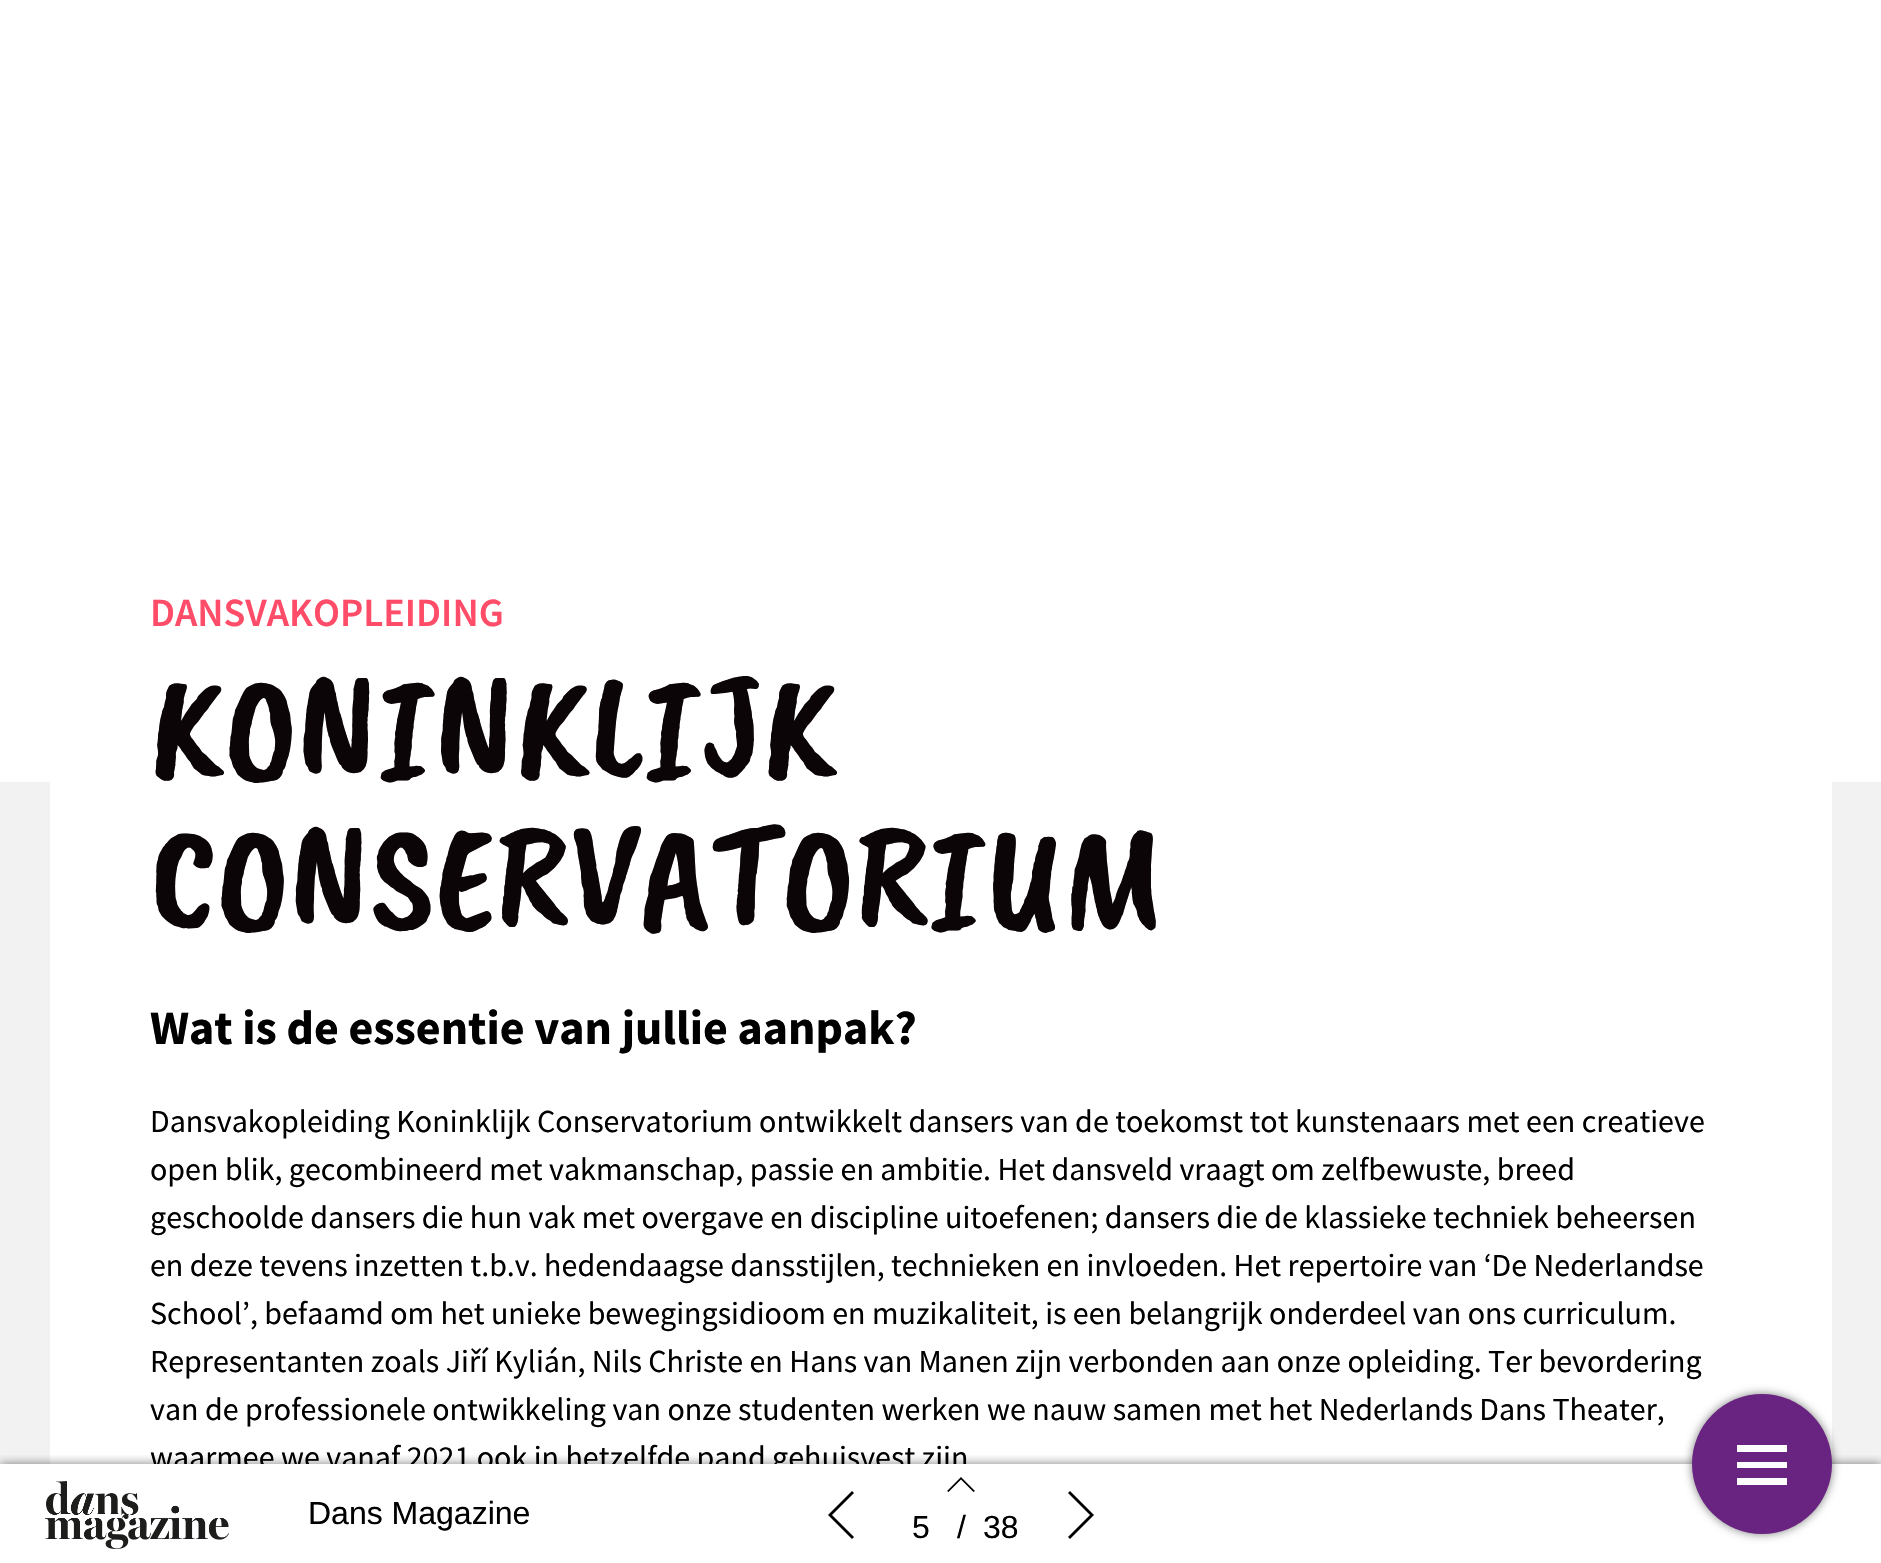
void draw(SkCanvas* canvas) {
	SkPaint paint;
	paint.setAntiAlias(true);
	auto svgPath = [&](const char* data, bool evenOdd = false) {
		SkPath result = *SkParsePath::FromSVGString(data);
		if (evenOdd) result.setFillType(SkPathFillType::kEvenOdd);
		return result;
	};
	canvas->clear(0xffffffff);
	paint.setColor(0xfff2f2f2);
	canvas->drawRect(SkRect::MakeXYWH(0, 782, 1881, 682), paint);
	paint.setColor(0xffffffff);
	canvas->drawPath(svgPath("M100 482H1782C1809.5 482 1832 504.5 1832 532V1464H50V532C50 504.5 72.5 482 100 482Z"), paint);
	SkFont f1(fontMgr->matchFamilyStyle("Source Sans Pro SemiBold", SkFontStyle(600, SkFontStyle::kNormal_Width, SkFontStyle::kUpright_Slant)), 40);
	f1.setSubpixel(true);
	paint.setColor(0xffff4c68);
	canvas->drawString("DANSVAKOPLEIDING", 150, 626, f1, paint);
	SkFont f2(fontMgr->matchFamilyStyle("Caveat Brush", SkFontStyle::Normal()), 150);
	f2.setSubpixel(true);
	paint.setColor(0xff0c0507);
	canvas->drawString("KONINKLIJK", 150, 776, f2, paint);
	canvas->drawString("CONSERVATORIUM", 150, 926, f2, paint);
	SkFont f3(fontMgr->matchFamilyStyle("Source Sans Pro", SkFontStyle::Bold()), 48);
	f3.setSubpixel(true);
	paint.setColor(0xff000000);
	canvas->drawString("Wat is de essentie van jullie aanpak?", 150, 1044, f3, paint);
	SkFont f4(fontMgr->matchFamilyStyle("Source Sans Pro", SkFontStyle::Normal()), 32);
	f4.setSubpixel(true);
	canvas->drawString("Dansvakopleiding Koninklijk Conservatorium ontwikkelt dansers van de toekomst tot kunstenaars met een creatieve", 150, 1132, f4, paint);
	canvas->drawString("open blik, gecombineerd met vakmanschap, passie en ambitie. Het dansveld vraagt om zelfbewuste, breed", 150, 1180, f4, paint);
	canvas->drawString("geschoolde dansers die hun vak met overgave en discipline uitoefenen; dansers die de klassieke techniek beheersen", 150, 1228, f4, paint);
	canvas->drawString("en deze tevens inzetten t.b.v. hedendaagse dansstijlen, technieken en invloeden. Het repertoire van ‘De Nederlandse", 150, 1276, f4, paint);
	canvas->drawString("School’, befaamd om het unieke bewegingsidioom en muzikaliteit, is een belangrijk onderdeel van ons curriculum.", 150, 1324, f4, paint);
	canvas->drawString("Representanten zoals Jiří Kylián, Nils Christe en Hans van Manen zijn verbonden aan onze opleiding. Ter bevordering", 150, 1372, f4, paint);
	canvas->drawString("van de professionele ontwikkeling van onze studenten werken we nauw samen met het Nederlands Dans Theater,", 150, 1420, f4, paint);
	canvas->save();
	canvas->clipRect(SkRect::MakeXYWH(0, 0, 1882, 1464));
	canvas->drawString("waarmee we vanaf 2021 ook in hetzelfde pand gehuisvest zijn", 150, 1468, f4, paint);
	canvas->restore();
	canvas->save();
	canvas->clipRect(SkRect::MakeXYWH(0, 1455, 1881, 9));
	paint.setColor(0x80000000);
	paint.setMaskFilter(SkMaskFilter::MakeBlur(kNormal_SkBlurStyle, 5));
	canvas->drawRect(SkRect::MakeXYWH(0, 1464, 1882, 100), paint);
	paint.setMaskFilter(nullptr);
	canvas->restore();
	canvas->drawImageRect(SkImages::DeferredFromEncodedData(SkData::MakeFromFileName("img1.png")), SkRect::MakeXYWH(45, 1481, 184, 68), SkSamplingOptions());
	SkFont f5(fontMgr->matchFamilyStyle("Liberation Sans", SkFontStyle::Normal()), 32);
	f5.setSubpixel(true);
	paint.setColor(0xff000000);
	canvas->drawString("Dans Magazine", 308, 1524, f5, paint);
	canvas->drawPath(svgPath("M832 1515L854 1537L852 1539L828 1515L852 1491L854 1493Z"), paint);
	canvas->drawPath(svgPath("M975 1491L973.5 1492L961 1479.5L948.5 1492L947 1491L961 1477Z"), paint);
	canvas->drawString("5", 912, 1538, f5, paint);
	canvas->drawString("/", 957, 1538, f5, paint);
	canvas->drawString("38", 983, 1538, f5, paint);
	canvas->drawPath(svgPath("M1094 1515L1070 1539L1068 1537L1090 1515L1068 1493L1070 1491Z"), paint);
	paint.setColor(0x80000000);
	paint.setMaskFilter(SkMaskFilter::MakeBlur(kNormal_SkBlurStyle, 5));
	canvas->drawRoundRect(SkRect::MakeXYWH(1692, 1394, 140, 140), 70, 70, paint);
	paint.setMaskFilter(nullptr);
	paint.setColor(0xff692481);
	canvas->drawCircle(1762, 1464, 70, paint);
	paint.setColor(0xffffffff);
	canvas->drawPath(svgPath("M1787 1445V1452H1737V1445ZM1737 1468H1787V1462H1737ZM1737 1485H1787V1478H1737Z"), paint);
}
